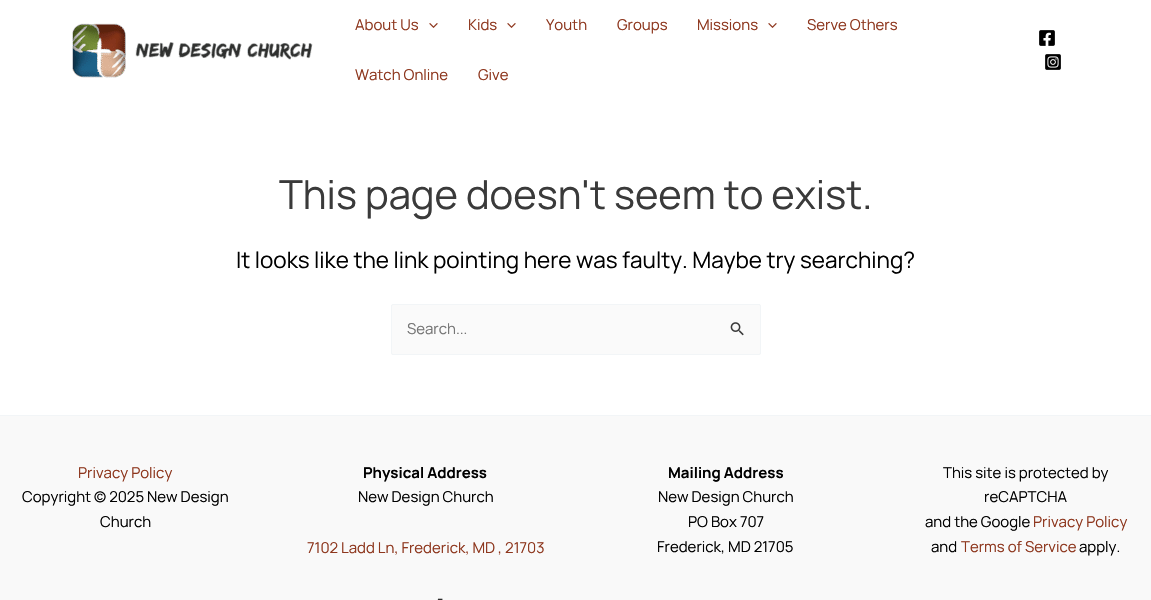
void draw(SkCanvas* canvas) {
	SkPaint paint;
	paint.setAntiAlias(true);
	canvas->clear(0xffffffff);
	canvas->drawImageRect(SkImages::DeferredFromEncodedData(SkData::MakeFromFileName("img1.png")), SkRect::MakeXYWH(72, 23, 241, 55), SkSamplingOptions());
	SkFont f1(fontMgr->matchFamilyStyle("Manrope", SkFontStyle::Normal()), 15);
	f1.setSubpixel(true);
	paint.setColor(0xff8e371e);
	canvas->drawString("About Us", 355, 30, f1, paint);
	canvas->drawImageRect(SkImages::DeferredFromEncodedData(SkData::MakeFromFileName("img2.png")), SkRect::MakeXYWH(429, 23, 9, 5), SkSamplingOptions());
	canvas->drawString("Kids", 468, 30, f1, paint);
	canvas->drawImageRect(SkImages::DeferredFromEncodedData(SkData::MakeFromFileName("img2.png")), SkRect::MakeXYWH(507, 23, 9, 5), SkSamplingOptions());
	canvas->drawString("Youth", 546, 30, f1, paint);
	canvas->drawString("Groups", 617, 30, f1, paint);
	canvas->drawString("Missions", 697, 30, f1, paint);
	canvas->drawImageRect(SkImages::DeferredFromEncodedData(SkData::MakeFromFileName("img2.png")), SkRect::MakeXYWH(768, 23, 9, 5), SkSamplingOptions());
	canvas->drawString("Serve Others", 807, 30, f1, paint);
	canvas->drawString("Watch Online", 355, 80, f1, paint);
	canvas->drawString("Give", 478, 80, f1, paint);
	canvas->drawImageRect(SkImages::DeferredFromEncodedData(SkData::MakeFromFileName("img3.png")), SkRect::MakeXYWH(1039, 30, 16, 16), SkSamplingOptions());
	canvas->drawImageRect(SkImages::DeferredFromEncodedData(SkData::MakeFromFileName("img4.png")), SkRect::MakeXYWH(1045, 54, 16, 16), SkSamplingOptions());
	SkFont f2(fontMgr->matchFamilyStyle("Manrope", SkFontStyle::Normal()), 40);
	f2.setSubpixel(true);
	paint.setColor(0xff3a3a3a);
	canvas->drawString("This page doesn't seem to exist.", 279, 209, f2, paint);
	SkFont f3(fontMgr->matchFamilyStyle("Manrope", SkFontStyle::Normal()), 22.5);
	f3.setSubpixel(true);
	paint.setColor(0xff000000);
	canvas->drawString("It looks like the link pointing here was faulty. Maybe try searching?", 236, 268, f3, paint);
	paint.setColor(0xfffafafa);
	canvas->drawRoundRect(SkRect::MakeXYWH(391.5, 304.5, 369, 50), 1.5, 1.5, paint);
	paint.setStroke(true);
	paint.setStrokeWidth(1);
	paint.setColor(0xfff2f5f7);
	canvas->drawRoundRect(SkRect::MakeXYWH(391.5, 304.5, 369, 50), 1.5, 1.5, paint);
	paint.setStroke(false);
	paint.setColor(0xff757575);
	canvas->drawString("Search...", 407, 334, f1, paint);
	canvas->drawImageRect(SkImages::DeferredFromEncodedData(SkData::MakeFromFileName("img5.png")), SkRect::MakeXYWH(730, 322, 14, 14), SkSamplingOptions());
	paint.setColor(0xfff9f9f9);
	canvas->drawRect(SkRect::MakeXYWH(0, 416, 1151, 184), paint);
	paint.setColor(0xfff2f5f7);
	canvas->drawRect(SkRect::MakeXYWH(0, 415, 1151, 1), paint);
	paint.setColor(0xff8e371e);
	canvas->drawString("Privacy Policy", 78, 478, f1, paint);
	paint.setColor(0xff000000);
	canvas->drawString("Copyright © 2025 New Design", 22, 502, f1, paint);
	canvas->drawString("Church", 100, 527, f1, paint);
	SkFont f4(fontMgr->matchFamilyStyle("Manrope", SkFontStyle::Bold()), 15);
	f4.setSubpixel(true);
	canvas->drawString("Physical Address", 363, 478, f4, paint);
	canvas->drawString("New Design Church", 358, 502, f1, paint);
	paint.setColor(0xff8e371e);
	canvas->drawString("7102 Ladd Ln, Frederick, MD , 21703", 307, 553, f1, paint);
	paint.setColor(0xff000000);
	canvas->drawString("-", 437, 604, f1, paint);
	canvas->drawString("Mailing Address", 668, 478, f4, paint);
	canvas->drawString("New Design Church", 658, 502, f1, paint);
	canvas->drawString("PO Box 707", 688, 527, f1, paint);
	canvas->drawString("Frederick, MD 21705", 657, 552, f1, paint);
	canvas->drawString("This site is protected by", 943, 478, f1, paint);
	canvas->drawString("reCAPTCHA", 984, 502, f1, paint);
	canvas->drawString("and the Google", 925, 527, f1, paint);
	paint.setColor(0xff8e371e);
	canvas->drawString("Privacy Policy", 1033, 527, f1, paint);
	paint.setColor(0xff000000);
	canvas->drawString("and", 931, 552, f1, paint);
	paint.setColor(0xff8e371e);
	canvas->drawString("Terms of Service", 961, 552, f1, paint);
	paint.setColor(0xff000000);
	canvas->drawString("apply.", 1079, 552, f1, paint);
}
